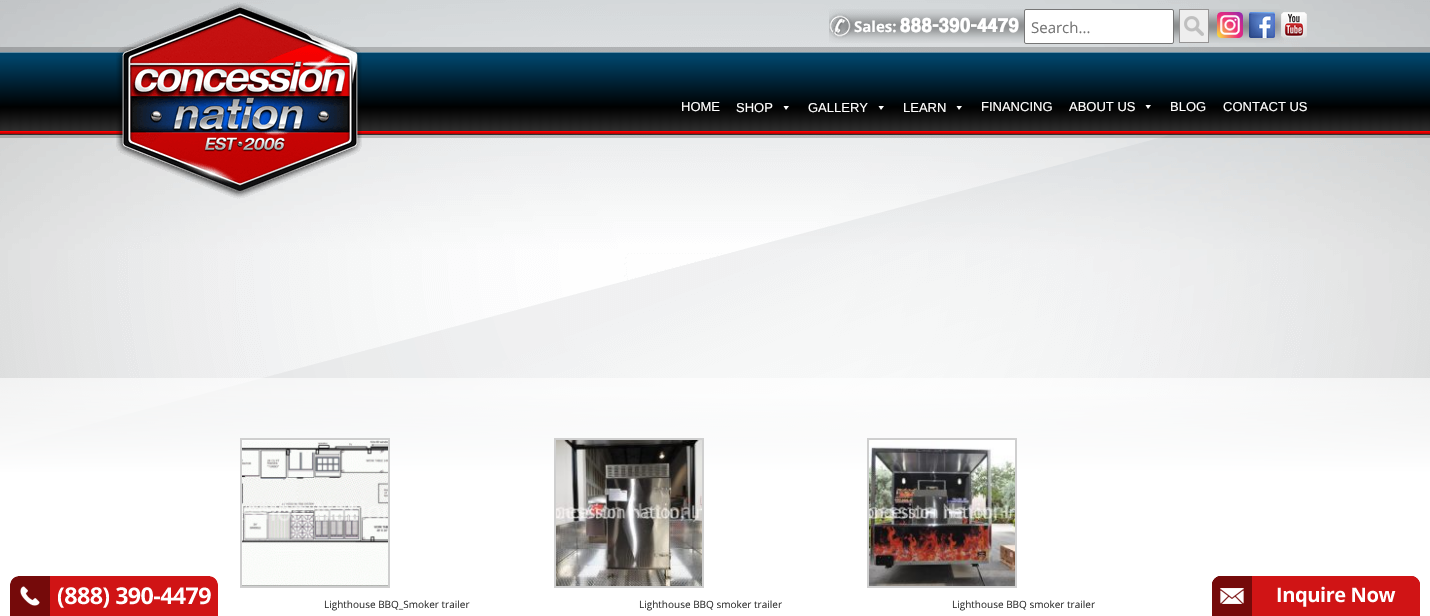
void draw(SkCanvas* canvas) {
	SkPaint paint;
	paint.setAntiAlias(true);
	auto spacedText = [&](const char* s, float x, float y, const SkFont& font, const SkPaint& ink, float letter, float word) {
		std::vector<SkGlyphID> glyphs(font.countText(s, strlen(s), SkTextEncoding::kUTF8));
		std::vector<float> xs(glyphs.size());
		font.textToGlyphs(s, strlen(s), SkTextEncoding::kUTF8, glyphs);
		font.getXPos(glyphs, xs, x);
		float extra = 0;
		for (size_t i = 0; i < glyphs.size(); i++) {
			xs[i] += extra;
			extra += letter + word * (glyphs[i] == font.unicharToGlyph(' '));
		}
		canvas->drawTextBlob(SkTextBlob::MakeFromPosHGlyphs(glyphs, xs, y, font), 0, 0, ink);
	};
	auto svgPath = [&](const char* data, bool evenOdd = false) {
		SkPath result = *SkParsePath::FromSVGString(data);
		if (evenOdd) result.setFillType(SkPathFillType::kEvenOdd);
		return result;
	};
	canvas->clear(0xffffffff);
	canvas->drawImageRect(SkImages::DeferredFromEncodedData(SkData::MakeFromFileName("img1.png")), SkRect::MakeXYWH(0, 0, 1430, 474), SkSamplingOptions());
	canvas->drawImageRect(SkImages::DeferredFromEncodedData(SkData::MakeFromFileName("img2.png")), SkRect::MakeXYWH(0, 47, 1430, 91), SkSamplingOptions());
	canvas->drawImageRect(SkImages::DeferredFromEncodedData(SkData::MakeFromFileName("img3.png")), SkRect::MakeXYWH(116, 2, 246, 197), SkSamplingOptions());
	canvas->drawImageRect(SkImages::DeferredFromEncodedData(SkData::MakeFromFileName("img4.png")), SkRect::MakeXYWH(829, 9, 455, 34), SkSamplingOptions());
	SkFont f1(fontMgr->matchFamilyStyle("Open Sans", SkFontStyle::Bold()), 15);
	f1.setSubpixel(true);
	paint.setColor(0xffffffff);
	canvas->drawString("Sales:", 854, 32, f1, paint);
	SkFont f2(fontMgr->matchFamilyStyle("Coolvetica", SkFontStyle::Bold()), 20);
	f2.setSubpixel(true);
	spacedText("888-390-4479", 900, 32, f2, paint, 1, 0);
	canvas->drawRoundRect(SkRect::MakeXYWH(1024.5, 9.5, 149, 34), 1.5, 1.5, paint);
	paint.setStroke(true);
	paint.setStrokeWidth(1);
	paint.setColor(0xff767676);
	canvas->drawRoundRect(SkRect::MakeXYWH(1024.5, 9.5, 149, 34), 1.5, 1.5, paint);
	SkFont f3(fontMgr->matchFamilyStyle("Open Sans", SkFontStyle::Normal()), 15);
	f3.setSubpixel(true);
	paint.setStroke(false);
	paint.setColor(0xff757575);
	canvas->drawString("Search...", 1031, 33, f3, paint);
	paint.setColor(0xffeeeeee);
	canvas->drawRect(SkRect::MakeXYWH(1180, 10, 28, 32), paint);
	canvas->drawImageRect(SkImages::DeferredFromEncodedData(SkData::MakeFromFileName("img5.png")), SkRect::MakeXYWH(1184, 16, 20, 20), SkSamplingOptions());
	paint.setStroke(true);
	paint.setColor(0xff969494);
	canvas->drawRect(SkRect::MakeXYWH(1179.5, 9.5, 29, 33), paint);
	canvas->drawImageRect(SkImages::DeferredFromEncodedData(SkData::MakeFromFileName("img6.png")), SkRect::MakeXYWH(1217, 12, 26, 26), SkSamplingOptions());
	canvas->drawImageRect(SkImages::DeferredFromEncodedData(SkData::MakeFromFileName("img7.png")), SkRect::MakeXYWH(1249, 12, 26, 26), SkSamplingOptions());
	canvas->drawImageRect(SkImages::DeferredFromEncodedData(SkData::MakeFromFileName("img8.png")), SkRect::MakeXYWH(1281, 12, 26, 26), SkSamplingOptions());
	SkFont f4(fontMgr->matchFamilyStyle("Liberation Sans", SkFontStyle::Normal()), 13);
	f4.setSubpixel(true);
	paint.setStroke(false);
	paint.setColor(0xffffffff);
	canvas->drawString("HOME", 681, 111, f4, paint);
	canvas->drawString("SHOP", 736, 112, f4, paint);
	canvas->drawPath(svgPath("M789 106L786 110L783.5 106Z"), paint);
	canvas->drawString("GALLERY", 808, 112, f4, paint);
	canvas->drawPath(svgPath("M884 106L881 110L878.5 106Z"), paint);
	canvas->drawString("LEARN", 903, 112, f4, paint);
	canvas->drawPath(svgPath("M962 106L959 110L956.5 106Z"), paint);
	canvas->drawString("FINANCING", 981, 111, f4, paint);
	canvas->drawString("ABOUT US", 1069, 111, f4, paint);
	canvas->drawPath(svgPath("M1151 105L1148 109L1145.5 105Z"), paint);
	canvas->drawString("BLOG", 1170, 111, f4, paint);
	canvas->drawString("CONTACT US", 1223, 111, f4, paint);
	canvas->drawImageRect(SkImages::DeferredFromEncodedData(SkData::MakeFromFileName("img9.png")), SkRect::MakeXYWH(10, 576, 208, 40), SkSamplingOptions());
	canvas->drawImageRect(SkImages::DeferredFromEncodedData(SkData::MakeFromFileName("img10.png")), SkRect::MakeXYWH(1212, 576, 208, 40), SkSamplingOptions());
	canvas->drawImageRect(SkImages::DeferredFromEncodedData(SkData::MakeFromFileName("img11.png")), SkRect::MakeXYWH(0, 378, 1430, 136), SkSamplingOptions());
	paint.setStroke(true);
	paint.setStrokeWidth(2);
	paint.setColor(0xffcfcfcf);
	canvas->drawRect(SkRect::MakeXYWH(241, 439, 148, 148), paint);
	canvas->drawImageRect(SkImages::DeferredFromEncodedData(SkData::MakeFromFileName("img12.png")), SkRect::MakeXYWH(242, 440, 146, 146), SkSamplingOptions());
	SkFont f5(fontMgr->matchFamilyStyle("Open Sans", SkFontStyle::Normal()), 10);
	f5.setSubpixel(true);
	paint.setStroke(false);
	paint.setColor(0xff333333);
	canvas->drawString("Lighthouse BBQ_Smoker trailer", 324, 608, f5, paint);
	paint.setStroke(true);
	paint.setColor(0xffcfcfcf);
	canvas->drawRect(SkRect::MakeXYWH(555, 439, 148, 148), paint);
	canvas->drawImageRect(SkImages::DeferredFromEncodedData(SkData::MakeFromFileName("img13.png")), SkRect::MakeXYWH(556, 440, 146, 146), SkSamplingOptions());
	paint.setStroke(false);
	paint.setColor(0xff333333);
	canvas->drawString("Lighthouse BBQ smoker trailer", 639, 608, f5, paint);
	paint.setStroke(true);
	paint.setColor(0xffcfcfcf);
	canvas->drawRect(SkRect::MakeXYWH(868, 439, 148, 148), paint);
	canvas->drawImageRect(SkImages::DeferredFromEncodedData(SkData::MakeFromFileName("img14.png")), SkRect::MakeXYWH(869, 440, 146, 146), SkSamplingOptions());
	paint.setStroke(false);
	paint.setColor(0xff333333);
	canvas->drawString("Lighthouse BBQ smoker trailer", 952, 608, f5, paint);
}
